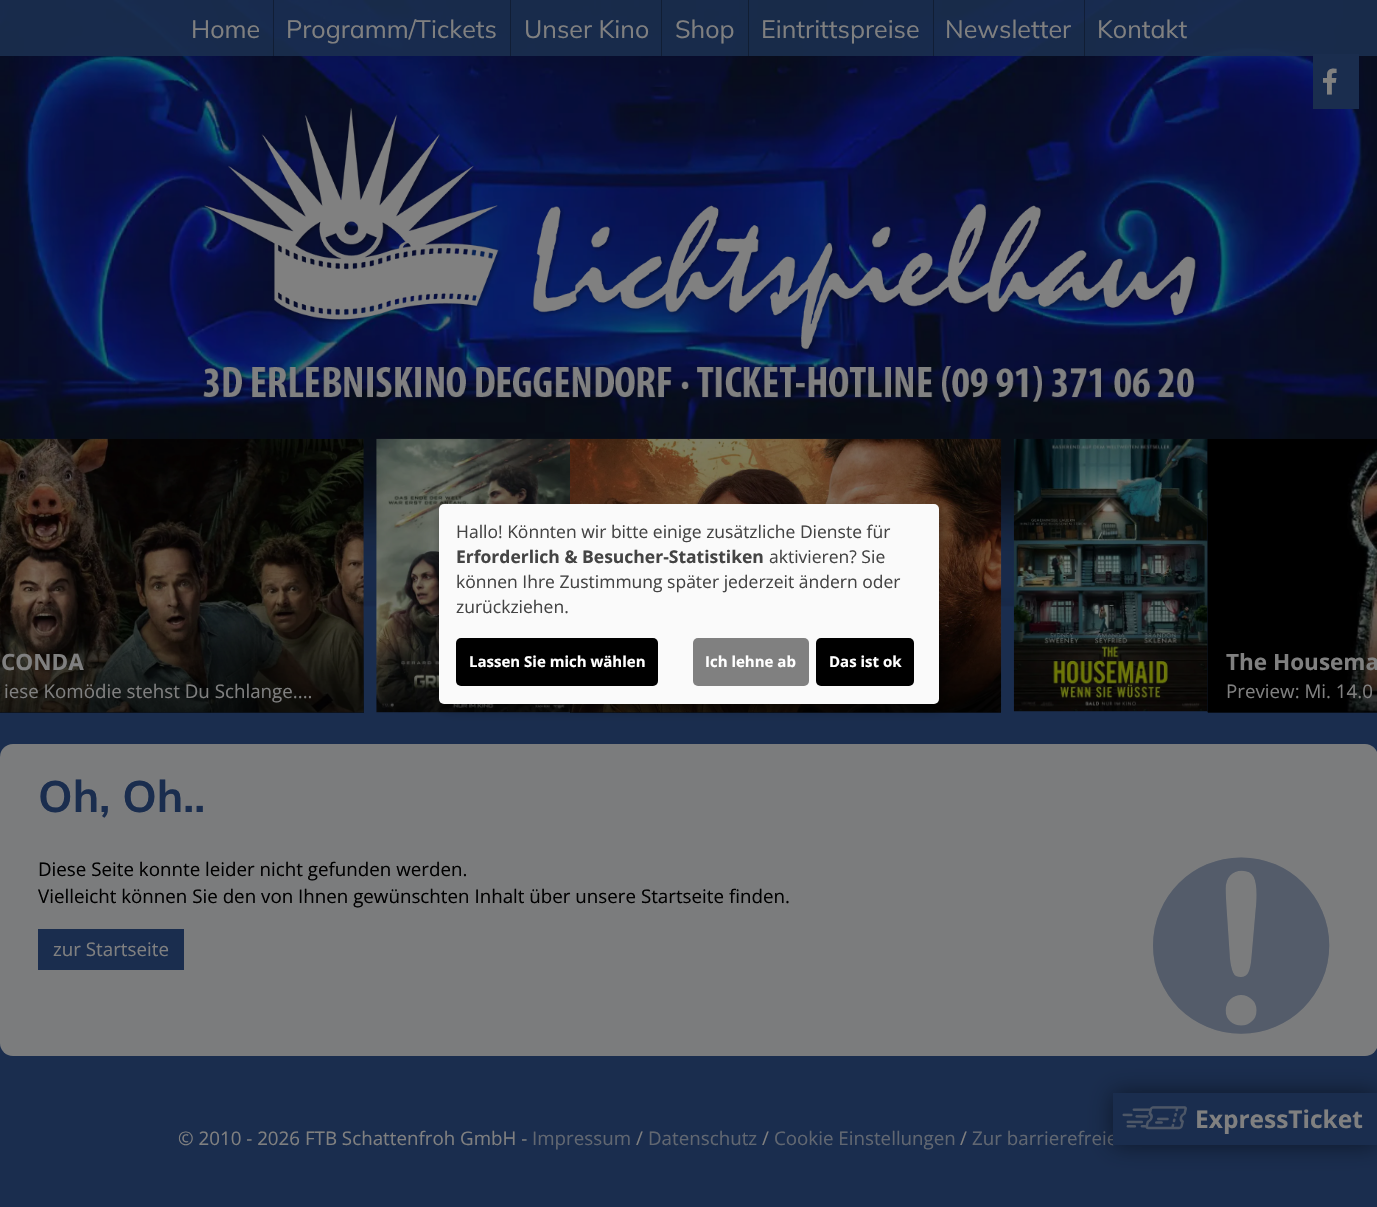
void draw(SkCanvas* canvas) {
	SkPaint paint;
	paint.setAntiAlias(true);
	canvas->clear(0xff1a2d4e);
	canvas->drawImageRect(SkImages::DeferredFromEncodedData(SkData::MakeFromFileName("img1.png")), SkRect::MakeXYWH(0, 0, 1377, 607), SkSamplingOptions());
	paint.setColor(0xe61a2d4e);
	canvas->drawRect(SkRect::MakeXYWH(0, 0, 1377, 56), paint);
	paint.setColor(0x4d000000);
	canvas->drawRect(SkRect::MakeXYWH(273, 0, 1, 56), paint);
	SkFont f1(fontMgr->matchFamilyStyle("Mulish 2", SkFontStyle(200, SkFontStyle::kNormal_Width, SkFontStyle::kUpright_Slant)), 25);
	f1.setSubpixel(true);
	paint.setColor(0xff808080);
	canvas->drawString("Home", 191, 38, f1, paint);
	paint.setColor(0xff111e35);
	canvas->drawRect(SkRect::MakeXYWH(510, 0, 1, 56), paint);
	paint.setColor(0xff808080);
	canvas->drawString("Programm/Tickets", 286, 38, f1, paint);
	paint.setColor(0xff111e34);
	canvas->drawRect(SkRect::MakeXYWH(661, 0, 1, 56), paint);
	paint.setColor(0xff808080);
	canvas->drawString("Unser Kino", 524, 38, f1, paint);
	paint.setColor(0xff111e33);
	canvas->drawRect(SkRect::MakeXYWH(748, 0, 1, 56), paint);
	paint.setColor(0xff808080);
	canvas->drawString("Shop", 675, 38, f1, paint);
	paint.setColor(0x4d000000);
	canvas->drawRect(SkRect::MakeXYWH(933, 0, 1, 56), paint);
	paint.setColor(0xff808080);
	canvas->drawString("Eintrittspreise", 761, 38, f1, paint);
	paint.setColor(0x4d000000);
	canvas->drawRect(SkRect::MakeXYWH(1084, 0, 1, 56), paint);
	paint.setColor(0xff808080);
	canvas->drawString("Newsletter", 945, 38, f1, paint);
	canvas->drawString("Kontakt", 1097, 38, f1, paint);
	paint.setColor(0xff1a2d4e);
	canvas->drawRect(SkRect::MakeXYWH(1313, 54, 46, 55), paint);
	SkFont f2(fontMgr->matchFamilyStyle("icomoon", SkFontStyle::Normal()), 26);
	f2.setSubpixel(true);
	paint.setColor(0xff808080);
	canvas->drawString(":", 1323, 91, f2, paint);
	canvas->drawImageRect(SkImages::DeferredFromEncodedData(SkData::MakeFromFileName("img2.png")), SkRect::MakeXYWH(203, 108, 997, 296), SkSamplingOptions());
	canvas->drawImageRect(SkImages::DeferredFromEncodedData(SkData::MakeFromFileName("img3.png")), SkRect::MakeXYWH(0, 438, 364, 275), SkSamplingOptions());
	{
		const SkColor colors[] = {0x00000000, 0x99000000};
		const float stops[] = {0.59, 0.96};
		const SkPoint ends[] = {{148, 439}, {148, 713}};
		paint.setShader(SkGradientShader::MakeLinear(ends, colors, stops, 2, SkTileMode::kClamp));
		paint.setAlpha(255);
	}
	canvas->drawRect(SkRect::MakeXYWH(0, 605, 364, 108), paint);
	SkFont f3(fontMgr->matchFamilyStyle("Open Sans", SkFontStyle::Bold()), 22.5);
	f3.setSubpixel(true);
	paint.setShader(nullptr);
	paint.setColor(0xff808080);
	canvas->drawString("CONDA", 1, 670, f3, paint);
	SkFont f4(fontMgr->matchFamilyStyle("Open Sans", SkFontStyle::Normal()), 18.75);
	f4.setSubpixel(true);
	canvas->drawString("iese Komödie stehst Du Schlange....", 4, 698, f4, paint);
	canvas->drawImageRect(SkImages::DeferredFromEncodedData(SkData::MakeFromFileName("img4.png")), SkRect::MakeXYWH(376, 438, 194, 275), SkSamplingOptions());
	canvas->drawImageRect(SkImages::DeferredFromEncodedData(SkData::MakeFromFileName("img5.png")), SkRect::MakeXYWH(570, 438, 432, 275), SkSamplingOptions());
	{
		const SkColor colors[] = {0x00000000, 0x99000000};
		const float stops[] = {0.59, 0.96};
		const SkPoint ends[] = {{786, 439}, {786, 713}};
		paint.setShader(SkGradientShader::MakeLinear(ends, colors, stops, 2, SkTileMode::kClamp));
		paint.setAlpha(255);
	}
	canvas->drawRect(SkRect::MakeXYWH(570, 604, 431, 109), paint);
	canvas->drawImageRect(SkImages::DeferredFromEncodedData(SkData::MakeFromFileName("img6.png")), SkRect::MakeXYWH(1013, 438, 195, 274), SkSamplingOptions());
	canvas->drawImageRect(SkImages::DeferredFromEncodedData(SkData::MakeFromFileName("img7.png")), SkRect::MakeXYWH(1207, 438, 170, 275), SkSamplingOptions());
	{
		const SkColor colors[] = {0x00000000, 0x99000000};
		const float stops[] = {0.59, 0.96};
		const SkPoint ends[] = {{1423, 439}, {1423, 713}};
		paint.setShader(SkGradientShader::MakeLinear(ends, colors, stops, 2, SkTileMode::kClamp));
		paint.setAlpha(255);
	}
	canvas->drawRect(SkRect::MakeXYWH(1208, 605, 169, 108), paint);
	paint.setShader(nullptr);
	paint.setColor(0xff808080);
	canvas->drawString("The Housema", 1226, 670, f3, paint);
	canvas->drawString("Preview: Mi. 14.0", 1226, 698, f4, paint);
	paint.setColor(0xff7b7c7d);
	canvas->drawRoundRect(SkRect::MakeXYWH(0, 744, 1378, 312), 13, 13, paint);
	SkFont f5(fontMgr->matchFamilyStyle("Mulish", SkFontStyle(200, SkFontStyle::kNormal_Width, SkFontStyle::kUpright_Slant)), 44);
	f5.setSubpixel(true);
	paint.setColor(0xff1a2d4e);
	canvas->drawString("Oh, Oh..", 38, 812, f5, paint);
	paint.setColor(0xff000000);
	canvas->drawString("Diese Seite konnte leider nicht gefunden werden.", 38, 876, f4, paint);
	canvas->drawString("Vielleicht können Sie den von Ihnen gewünschten Inhalt über unsere Startseite finden.", 38, 903, f4, paint);
	SkFont f6(fontMgr->matchFamilyStyle("icomoon", SkFontStyle::Normal()), 188);
	f6.setSubpixel(true);
	paint.setColor(0xff545c6a);
	canvas->drawString("=", 1153, 1016, f6, paint);
	paint.setColor(0xff1a2d4e);
	canvas->drawRect(SkRect::MakeXYWH(38, 929, 146, 41), paint);
	paint.setColor(0xff808080);
	canvas->drawString("zur Startseite", 53, 956, f4, paint);
	canvas->drawString("© 2010 - 2026 FTB Schattenfroh GmbH -", 178, 1145, f4, paint);
	paint.setColor(0xff616771);
	canvas->drawString("Impressum", 532, 1145, f4, paint);
	paint.setColor(0xff808080);
	canvas->drawString("/", 636, 1145, f4, paint);
	paint.setColor(0xff616771);
	canvas->drawString("Datenschutz", 648, 1145, f4, paint);
	paint.setColor(0xff808080);
	canvas->drawString("/", 762, 1145, f4, paint);
	paint.setColor(0xff616771);
	canvas->drawString("Cookie Einstellungen", 774, 1145, f4, paint);
	paint.setColor(0xff808080);
	canvas->drawString("/", 960, 1145, f4, paint);
	paint.setColor(0xff616771);
	canvas->drawString("Zur barrierefreie", 972, 1145, f4, paint);
	paint.setColor(0x30000000);
	paint.setMaskFilter(SkMaskFilter::MakeBlur(kNormal_SkBlurStyle, 6));
	canvas->drawRoundRect(SkRect::MakeXYWH(445, 510, 500, 200), 5, 5, paint);
	paint.setMaskFilter(nullptr);
	paint.setColor(0x33000000);
	paint.setMaskFilter(SkMaskFilter::MakeBlur(kNormal_SkBlurStyle, 4));
	canvas->drawRoundRect(SkRect::MakeXYWH(439, 509, 500, 200), 5, 5, paint);
	paint.setMaskFilter(nullptr);
	paint.setColor(0xfffafafa);
	canvas->drawRoundRect(SkRect::MakeXYWH(439, 504, 500, 200), 5, 5, paint);
	SkFont f7(fontMgr->matchFamilyStyle("Open Sans", SkFontStyle::Normal()), 17.5);
	f7.setSubpixel(true);
	paint.setColor(0xff444444);
	canvas->drawString("Hallo! Könnten wir bitte einige zusätzliche Dienste für", 456, 538, f7, paint);
	SkFont f8(fontMgr->matchFamilyStyle("Open Sans", SkFontStyle::Bold()), 17.5);
	f8.setSubpixel(true);
	canvas->drawString("Erforderlich & Besucher-Statistiken", 456, 563, f8, paint);
	canvas->drawString("aktivieren? Sie", 769, 563, f7, paint);
	canvas->drawString("können Ihre Zustimmung später jederzeit ändern oder", 456, 588, f7, paint);
	canvas->drawString("zurückziehen.", 456, 613, f7, paint);
	paint.setColor(0xff000000);
	canvas->drawRoundRect(SkRect::MakeXYWH(456, 638, 202, 48), 5, 5, paint);
	SkFont f9(fontMgr->matchFamilyStyle("Open Sans", SkFontStyle::Bold()), 15);
	f9.setSubpixel(true);
	paint.setColor(0xffffffff);
	canvas->drawString("Lassen Sie mich wählen", 469, 667, f9, paint);
	paint.setColor(0xff808080);
	canvas->drawRoundRect(SkRect::MakeXYWH(693, 638, 116, 48), 5, 5, paint);
	paint.setColor(0xffffffff);
	canvas->drawString("Ich lehne ab", 705, 667, f9, paint);
	paint.setColor(0xff000000);
	canvas->drawRoundRect(SkRect::MakeXYWH(816, 638, 98, 48), 5, 5, paint);
	paint.setColor(0xffffffff);
	canvas->drawString("Das ist ok", 829, 667, f9, paint);
	paint.setColor(0x80000000);
	paint.setMaskFilter(SkMaskFilter::MakeBlur(kNormal_SkBlurStyle, 12.5));
	canvas->drawRect(SkRect::MakeXYWH(1113, 1093, 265, 52), paint);
	paint.setMaskFilter(nullptr);
	paint.setColor(0xff1a2d4e);
	canvas->drawRect(SkRect::MakeXYWH(1113, 1093, 264, 52), paint);
	canvas->drawImageRect(SkImages::DeferredFromEncodedData(SkData::MakeFromFileName("img8.png")), SkRect::MakeXYWH(1122, 1106, 65, 24), SkSamplingOptions());
	SkFont f10(fontMgr->matchFamilyStyle("Open Sans", SkFontStyle::Bold()), 24.5);
	f10.setSubpixel(true);
	paint.setColor(0xff808080);
	canvas->drawString("ExpressTicket", 1195, 1128, f10, paint);
}
